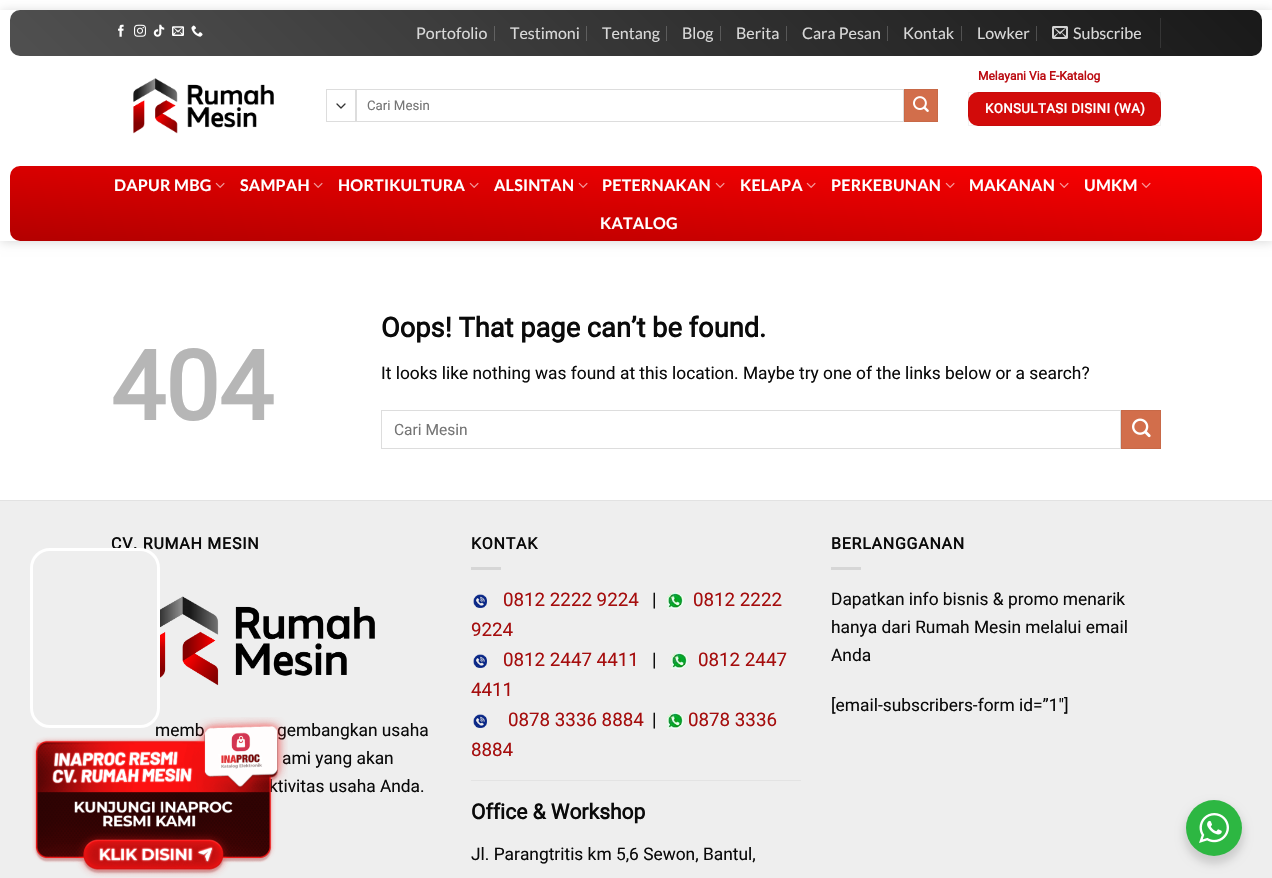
void draw(SkCanvas* canvas) {
	SkPaint paint;
	paint.setAntiAlias(true);
	auto spacedText = [&](const char* s, float x, float y, const SkFont& font, const SkPaint& ink, float letter, float word) {
		std::vector<SkGlyphID> glyphs(font.countText(s, strlen(s), SkTextEncoding::kUTF8));
		std::vector<float> xs(glyphs.size());
		font.textToGlyphs(s, strlen(s), SkTextEncoding::kUTF8, glyphs);
		font.getXPos(glyphs, xs, x);
		float extra = 0;
		for (size_t i = 0; i < glyphs.size(); i++) {
			xs[i] += extra;
			extra += letter + word * (glyphs[i] == font.unicharToGlyph(' '));
		}
		canvas->drawTextBlob(SkTextBlob::MakeFromPosHGlyphs(glyphs, xs, y, font), 0, 0, ink);
	};
	auto svgPath = [&](const char* data, bool evenOdd = false) {
		SkPath result = *SkParsePath::FromSVGString(data);
		if (evenOdd) result.setFillType(SkPathFillType::kEvenOdd);
		return result;
	};
	canvas->clear(0xffffffff);
	paint.setColor(0xffeeeeee);
	canvas->drawRect(SkRect::MakeXYWH(0, 501, 1272, 377), paint);
	SkFont f1(fontMgr->matchFamilyStyle("Roboto", SkFontStyle::Bold()), 16);
	f1.setSubpixel(true);
	paint.setColor(0xff0a0a0a);
	spacedText("CV. RUMAH MESIN", 111, 549, f1, paint, 0.75, 0);
	SkFont f2(fontMgr->matchFamilyStyle("Roboto", SkFontStyle::Normal()), 17.35);
	f2.setSubpixel(true);
	canvas->drawString("memb", 155, 736, f2, paint);
	canvas->drawString("gembangkan usaha", 277, 736, f2, paint);
	canvas->drawString("ami yang akan", 282, 764, f2, paint);
	canvas->drawString("ktivitas usaha Anda.", 269, 792, f2, paint);
	canvas->drawImageRect(SkImages::DeferredFromEncodedData(SkData::MakeFromFileName("img23.png")), SkRect::MakeXYWH(32, 717, 256, 161), SkSamplingOptions());
	paint.setColor(0xffeeeeee);
	canvas->drawRoundRect(SkRect::MakeXYWH(31.5, 549.5, 127, 177), 18.5, 18.5, paint);
	paint.setStroke(true);
	paint.setStrokeWidth(3);
	paint.setColor(0xffffffff);
	canvas->drawRoundRect(SkRect::MakeXYWH(31.5, 549.5, 127, 177), 18.5, 18.5, paint);
	canvas->save();
	canvas->clipPath(svgPath("M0 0H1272V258H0ZM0 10H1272V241H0Z", true), true);
	paint.setStroke(false);
	paint.setColor(0x26000000);
	paint.setMaskFilter(SkMaskFilter::MakeBlur(kNormal_SkBlurStyle, 5));
	canvas->drawRect(SkRect::MakeXYWH(1, 11, 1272, 231), paint);
	paint.setMaskFilter(nullptr);
	canvas->restore();
	{
		const SkColor colors[] = {0xff505050, 0xff191919};
		const float stops[] = {0, 1};
		const SkPoint ends[] = {{312, 358}, {961, -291}};
		paint.setShader(SkGradientShader::MakeLinear(ends, colors, stops, 2, SkTileMode::kClamp));
		paint.setAlpha(255);
	}
	canvas->drawRoundRect(SkRect::MakeXYWH(10, 10, 1252, 46), 10, 10, paint);
	canvas->drawImageRect(SkImages::DeferredFromEncodedData(SkData::MakeFromFileName("img1.png")), SkRect::MakeXYWH(118, 24, 6, 13), SkSamplingOptions());
	canvas->drawImageRect(SkImages::DeferredFromEncodedData(SkData::MakeFromFileName("img2.png")), SkRect::MakeXYWH(134, 24, 12, 13), SkSamplingOptions());
	canvas->drawImageRect(SkImages::DeferredFromEncodedData(SkData::MakeFromFileName("img3.png")), SkRect::MakeXYWH(153, 24, 12, 13), SkSamplingOptions());
	canvas->drawImageRect(SkImages::DeferredFromEncodedData(SkData::MakeFromFileName("img4.png")), SkRect::MakeXYWH(172, 26, 12, 10), SkSamplingOptions());
	canvas->drawImageRect(SkImages::DeferredFromEncodedData(SkData::MakeFromFileName("img5.png")), SkRect::MakeXYWH(191, 25, 12, 12), SkSamplingOptions());
	SkFont f3(fontMgr->matchFamilyStyle("Lato", SkFontStyle::Normal()), 16);
	f3.setSubpixel(true);
	paint.setShader(nullptr);
	paint.setColor(0xffd8d8d8);
	canvas->drawString("Portofolio", 416, 39, f3, paint);
	paint.setColor(0xff626262);
	canvas->drawRect(SkRect::MakeXYWH(494, 26, 1, 15), paint);
	paint.setColor(0xffd8d8d8);
	canvas->drawString("Testimoni", 510, 39, f3, paint);
	paint.setColor(0xff5f5f5f);
	canvas->drawRect(SkRect::MakeXYWH(586, 26, 1, 15), paint);
	paint.setColor(0xffd8d8d8);
	canvas->drawString("Tentang", 602, 39, f3, paint);
	paint.setColor(0xff5c5c5c);
	canvas->drawRect(SkRect::MakeXYWH(666, 26, 1, 15), paint);
	paint.setColor(0xffd8d8d8);
	canvas->drawString("Blog", 682, 39, f3, paint);
	paint.setColor(0xff5a5a5a);
	canvas->drawRect(SkRect::MakeXYWH(720, 26, 1, 15), paint);
	paint.setColor(0xffd8d8d8);
	canvas->drawString("Berita", 736, 39, f3, paint);
	paint.setColor(0xff585858);
	canvas->drawRect(SkRect::MakeXYWH(786, 26, 1, 15), paint);
	paint.setColor(0xffd8d8d8);
	canvas->drawString("Cara Pesan", 802, 39, f3, paint);
	paint.setColor(0xff555555);
	canvas->drawRect(SkRect::MakeXYWH(887, 26, 1, 15), paint);
	paint.setColor(0xffd8d8d8);
	canvas->drawString("Kontak", 903, 39, f3, paint);
	paint.setColor(0xff525252);
	canvas->drawRect(SkRect::MakeXYWH(961, 26, 1, 15), paint);
	paint.setColor(0xffd8d8d8);
	canvas->drawString("Lowker", 977, 39, f3, paint);
	paint.setColor(0xff4f4f4f);
	canvas->drawRect(SkRect::MakeXYWH(1036, 26, 1, 15), paint);
	canvas->drawImageRect(SkImages::DeferredFromEncodedData(SkData::MakeFromFileName("img6.png")), SkRect::MakeXYWH(1052, 26, 16, 13), SkSamplingOptions());
	paint.setColor(0xffd8d8d8);
	canvas->drawString("Subscribe", 1073, 39, f3, paint);
	paint.setColor(0xff353535);
	canvas->drawRect(SkRect::MakeXYWH(1160, 18, 1, 30), paint);
	canvas->drawImageRect(SkImages::DeferredFromEncodedData(SkData::MakeFromFileName("img7.png")), SkRect::MakeXYWH(133, 78, 141, 56), SkSamplingOptions());
	paint.setStroke(true);
	paint.setStrokeWidth(1.3);
	paint.setStrokeCap(SkPaint::kRound_Cap);
	paint.setStrokeJoin(SkPaint::kRound_Join);
	paint.setColor(0xff333333);
	canvas->drawPath(svgPath("M337 104L341 108L345 104"), paint);
	paint.setStrokeWidth(1);
	paint.setStrokeCap(SkPaint::kButt_Cap);
	paint.setStrokeJoin(SkPaint::kMiter_Join);
	paint.setColor(0xffdddddd);
	canvas->drawRect(SkRect::MakeXYWH(326.5, 89.5, 29, 32), paint);
	canvas->drawRect(SkRect::MakeXYWH(356.5, 89.5, 547, 32), paint);
	SkFont f4(fontMgr->matchFamilyStyle("Roboto", SkFontStyle::Normal()), 13.25);
	f4.setSubpixel(true);
	paint.setStroke(false);
	paint.setColor(0xff757575);
	canvas->drawString("Cari Mesin", 367, 110, f4, paint);
	paint.setColor(0xffd26e4b);
	canvas->drawRect(SkRect::MakeXYWH(904.5, 89.5, 33, 32), paint);
	paint.setStroke(true);
	paint.setColor(0xffc86947);
	canvas->drawRect(SkRect::MakeXYWH(904.5, 89.5, 33, 32), paint);
	canvas->drawImageRect(SkImages::DeferredFromEncodedData(SkData::MakeFromFileName("img8.png")), SkRect::MakeXYWH(913, 96, 16, 16), SkSamplingOptions());
	SkFont f5(fontMgr->matchFamilyStyle("Roboto", SkFontStyle::Bold()), 12);
	f5.setSubpixel(true);
	paint.setStroke(false);
	paint.setColor(0xffbb0c12);
	canvas->drawString("Melayani Via E-Katalog", 978, 80, f5, paint);
	paint.setColor(0xffd20b0a);
	canvas->drawRoundRect(SkRect::MakeXYWH(968, 92, 193, 34), 10, 10, paint);
	paint.setStroke(true);
	paint.setColor(0x0d000000);
	canvas->drawRect(SkRect::MakeXYWH(968.5, 92.5, 192, 33), paint);
	SkFont f6(fontMgr->matchFamilyStyle("Roboto", SkFontStyle::Bold()), 13.25);
	f6.setSubpixel(true);
	paint.setStroke(false);
	paint.setColor(0xffffffff);
	spacedText("KONSULTASI DISINI (WA)", 985, 113, f6, paint, 0.4, 0);
	{
		const SkColor colors[] = {0xffb40000, 0xfffc0001};
		const float stops[] = {0, 1};
		const SkPoint ends[] = {{632, 274}, {640, 133}};
		paint.setShader(SkGradientShader::MakeLinear(ends, colors, stops, 2, SkTileMode::kClamp));
		paint.setAlpha(255);
	}
	canvas->drawRoundRect(SkRect::MakeXYWH(10, 166, 1252, 75), 10, 10, paint);
	SkFont f7(fontMgr->matchFamilyStyle("Lato", SkFontStyle::Bold()), 16);
	f7.setSubpixel(true);
	paint.setShader(nullptr);
	paint.setColor(0xffffffff);
	spacedText("DAPUR MBG", 114, 191, f7, paint, 0.25, 0);
	canvas->drawImageRect(SkImages::DeferredFromEncodedData(SkData::MakeFromFileName("img9.png")), SkRect::MakeXYWH(215, 182, 10, 6), SkSamplingOptions());
	spacedText("SAMPAH", 240, 191, f7, paint, 0.25, 0);
	canvas->drawImageRect(SkImages::DeferredFromEncodedData(SkData::MakeFromFileName("img10.png")), SkRect::MakeXYWH(313, 182, 10, 6), SkSamplingOptions());
	spacedText("HORTIKULTURA", 338, 191, f7, paint, 0.25, 0);
	canvas->drawImageRect(SkImages::DeferredFromEncodedData(SkData::MakeFromFileName("img11.png")), SkRect::MakeXYWH(469, 182, 10, 6), SkSamplingOptions());
	spacedText("ALSINTAN", 494, 191, f7, paint, 0.25, 0);
	canvas->drawImageRect(SkImages::DeferredFromEncodedData(SkData::MakeFromFileName("img12.png")), SkRect::MakeXYWH(578, 182, 10, 6), SkSamplingOptions());
	spacedText("PETERNAKAN", 602, 191, f7, paint, 0.25, 0);
	canvas->drawImageRect(SkImages::DeferredFromEncodedData(SkData::MakeFromFileName("img13.png")), SkRect::MakeXYWH(715, 182, 10, 6), SkSamplingOptions());
	spacedText("KELAPA", 740, 191, f7, paint, 0.25, 0);
	canvas->drawImageRect(SkImages::DeferredFromEncodedData(SkData::MakeFromFileName("img14.png")), SkRect::MakeXYWH(806, 182, 10, 6), SkSamplingOptions());
	spacedText("PERKEBUNAN", 831, 191, f7, paint, 0.25, 0);
	canvas->drawImageRect(SkImages::DeferredFromEncodedData(SkData::MakeFromFileName("img15.png")), SkRect::MakeXYWH(945, 182, 10, 6), SkSamplingOptions());
	spacedText("MAKANAN", 969, 191, f7, paint, 0.25, 0);
	canvas->drawImageRect(SkImages::DeferredFromEncodedData(SkData::MakeFromFileName("img16.png")), SkRect::MakeXYWH(1059, 182, 10, 6), SkSamplingOptions());
	spacedText("UMKM", 1084, 191, f7, paint, 0.25, 0);
	canvas->drawImageRect(SkImages::DeferredFromEncodedData(SkData::MakeFromFileName("img17.png")), SkRect::MakeXYWH(1141, 182, 10, 6), SkSamplingOptions());
	spacedText("KATALOG", 600, 229, f7, paint, 0.25, 0);
	SkFont f8(fontMgr->matchFamilyStyle("Roboto", SkFontStyle::Bold()), 96);
	f8.setSubpixel(true);
	paint.setColor(0xffb6b6b6);
	canvas->drawString("404", 111, 420, f8, paint);
	SkFont f9(fontMgr->matchFamilyStyle("Roboto", SkFontStyle::Bold()), 27.25);
	f9.setSubpixel(true);
	paint.setColor(0xff0a0a0a);
	canvas->drawString("Oops! That page can’t be found.", 381, 337, f9, paint);
	canvas->drawString("It looks like nothing was found at this location. Maybe try one of the links below or a search?", 381, 379, f2, paint);
	paint.setStroke(true);
	paint.setColor(0xffdddddd);
	canvas->drawRect(SkRect::MakeXYWH(381.5, 410.5, 739, 38), paint);
	SkFont f10(fontMgr->matchFamilyStyle("Roboto", SkFontStyle::Normal()), 15.5);
	f10.setSubpixel(true);
	paint.setStroke(false);
	paint.setColor(0xff757575);
	canvas->drawString("Cari Mesin", 394, 435, f10, paint);
	paint.setColor(0xffd26e4b);
	canvas->drawRect(SkRect::MakeXYWH(1121.5, 410.5, 39, 38), paint);
	paint.setStroke(true);
	paint.setColor(0xffc86947);
	canvas->drawRect(SkRect::MakeXYWH(1121.5, 410.5, 39, 38), paint);
	canvas->drawImageRect(SkImages::DeferredFromEncodedData(SkData::MakeFromFileName("img18.png")), SkRect::MakeXYWH(1132, 418, 19, 20), SkSamplingOptions());
	paint.setStroke(false);
	paint.setColor(0xffe2e2e2);
	canvas->drawRect(SkRect::MakeXYWH(0, 500, 1272, 1), paint);
	canvas->drawImageRect(SkImages::DeferredFromEncodedData(SkData::MakeFromFileName("img19.png")), SkRect::MakeXYWH(160, 596, 215, 90), SkSamplingOptions());
	paint.setColor(0xff0a0a0a);
	spacedText("KONTAK", 471, 549, f1, paint, 0.75, 0);
	paint.setColor(0xffd6d6d6);
	canvas->drawRect(SkRect::MakeXYWH(471, 567, 30, 3), paint);
	canvas->drawImageRect(SkImages::DeferredFromEncodedData(SkData::MakeFromFileName("img20.png")), SkRect::MakeXYWH(473, 594, 14, 14), SkSamplingOptions());
	SkFont f11(fontMgr->matchFamilyStyle("Roboto", SkFontStyle::Normal()), 18.75);
	f11.setSubpixel(true);
	paint.setColor(0xffa50d0d);
	canvas->drawString("0812 2222 9224", 503, 606, f11, paint);
	paint.setColor(0xff0a0a0a);
	canvas->drawString("|", 652, 606, f11, paint);
	canvas->drawImageRect(SkImages::DeferredFromEncodedData(SkData::MakeFromFileName("img21.png")), SkRect::MakeXYWH(667, 592, 17, 17), SkSamplingOptions());
	paint.setColor(0xffa50d0d);
	canvas->drawString("0812 2222", 693, 606, f11, paint);
	canvas->drawString("9224", 471, 636, f11, paint);
	canvas->drawImageRect(SkImages::DeferredFromEncodedData(SkData::MakeFromFileName("img22.png")), SkRect::MakeXYWH(671, 652, 17, 17), SkSamplingOptions());
	canvas->drawString("0812 2447", 698, 666, f11, paint);
	canvas->drawString("4411", 471, 696, f11, paint);
	canvas->drawImageRect(SkImages::DeferredFromEncodedData(SkData::MakeFromFileName("img20.png")), SkRect::MakeXYWH(473, 654, 14, 14), SkSamplingOptions());
	canvas->drawString("0812 2447 4411", 503, 666, f11, paint);
	paint.setColor(0xff0a0a0a);
	canvas->drawString("|", 652, 666, f11, paint);
	canvas->drawImageRect(SkImages::DeferredFromEncodedData(SkData::MakeFromFileName("img21.png")), SkRect::MakeXYWH(667, 712, 17, 17), SkSamplingOptions());
	paint.setColor(0xffa50d0d);
	canvas->drawString("0878 3336", 688, 726, f11, paint);
	canvas->drawString("8884", 471, 756, f11, paint);
	canvas->drawImageRect(SkImages::DeferredFromEncodedData(SkData::MakeFromFileName("img20.png")), SkRect::MakeXYWH(473, 714, 14, 14), SkSamplingOptions());
	canvas->drawString("0878 3336 8884", 508, 726, f11, paint);
	paint.setColor(0xff0a0a0a);
	canvas->drawString("|", 652, 726, f11, paint);
	paint.setColor(0xffe3e3e3);
	canvas->drawRect(SkRect::MakeXYWH(471, 780, 330, 1), paint);
	SkFont f12(fontMgr->matchFamilyStyle("Roboto", SkFontStyle::Bold()), 21);
	f12.setSubpixel(true);
	paint.setColor(0xff0a0a0a);
	canvas->drawString("Office & Workshop", 471, 819, f12, paint);
	canvas->drawString("Jl. Parangtritis km 5,6 Sewon, Bantul,", 471, 860, f2, paint);
	spacedText("BERLANGGANAN", 831, 549, f1, paint, 0.75, 0);
	paint.setColor(0xffd6d6d6);
	canvas->drawRect(SkRect::MakeXYWH(831, 567, 30, 3), paint);
	paint.setColor(0xff0a0a0a);
	canvas->drawString("Dapatkan info bisnis & promo menarik", 831, 605, f2, paint);
	canvas->drawString("hanya dari Rumah Mesin melalui email", 831, 633, f2, paint);
	canvas->drawString("Anda", 831, 661, f2, paint);
	canvas->drawString("[email-subscribers-form id=”1″]", 831, 711, f2, paint);
	paint.setColor(0x24000000);
	paint.setMaskFilter(SkMaskFilter::MakeBlur(kNormal_SkBlurStyle, 4));
	canvas->drawRoundRect(SkRect::MakeXYWH(1184, 804, 60, 60), 30, 30, paint);
	paint.setMaskFilter(nullptr);
	paint.setColor(0xff2db742);
	canvas->drawCircle(1214, 828, 28, paint);
	canvas->drawImageRect(SkImages::DeferredFromEncodedData(SkData::MakeFromFileName("img24.png")), SkRect::MakeXYWH(1199, 813, 30, 30), SkSamplingOptions());
}
